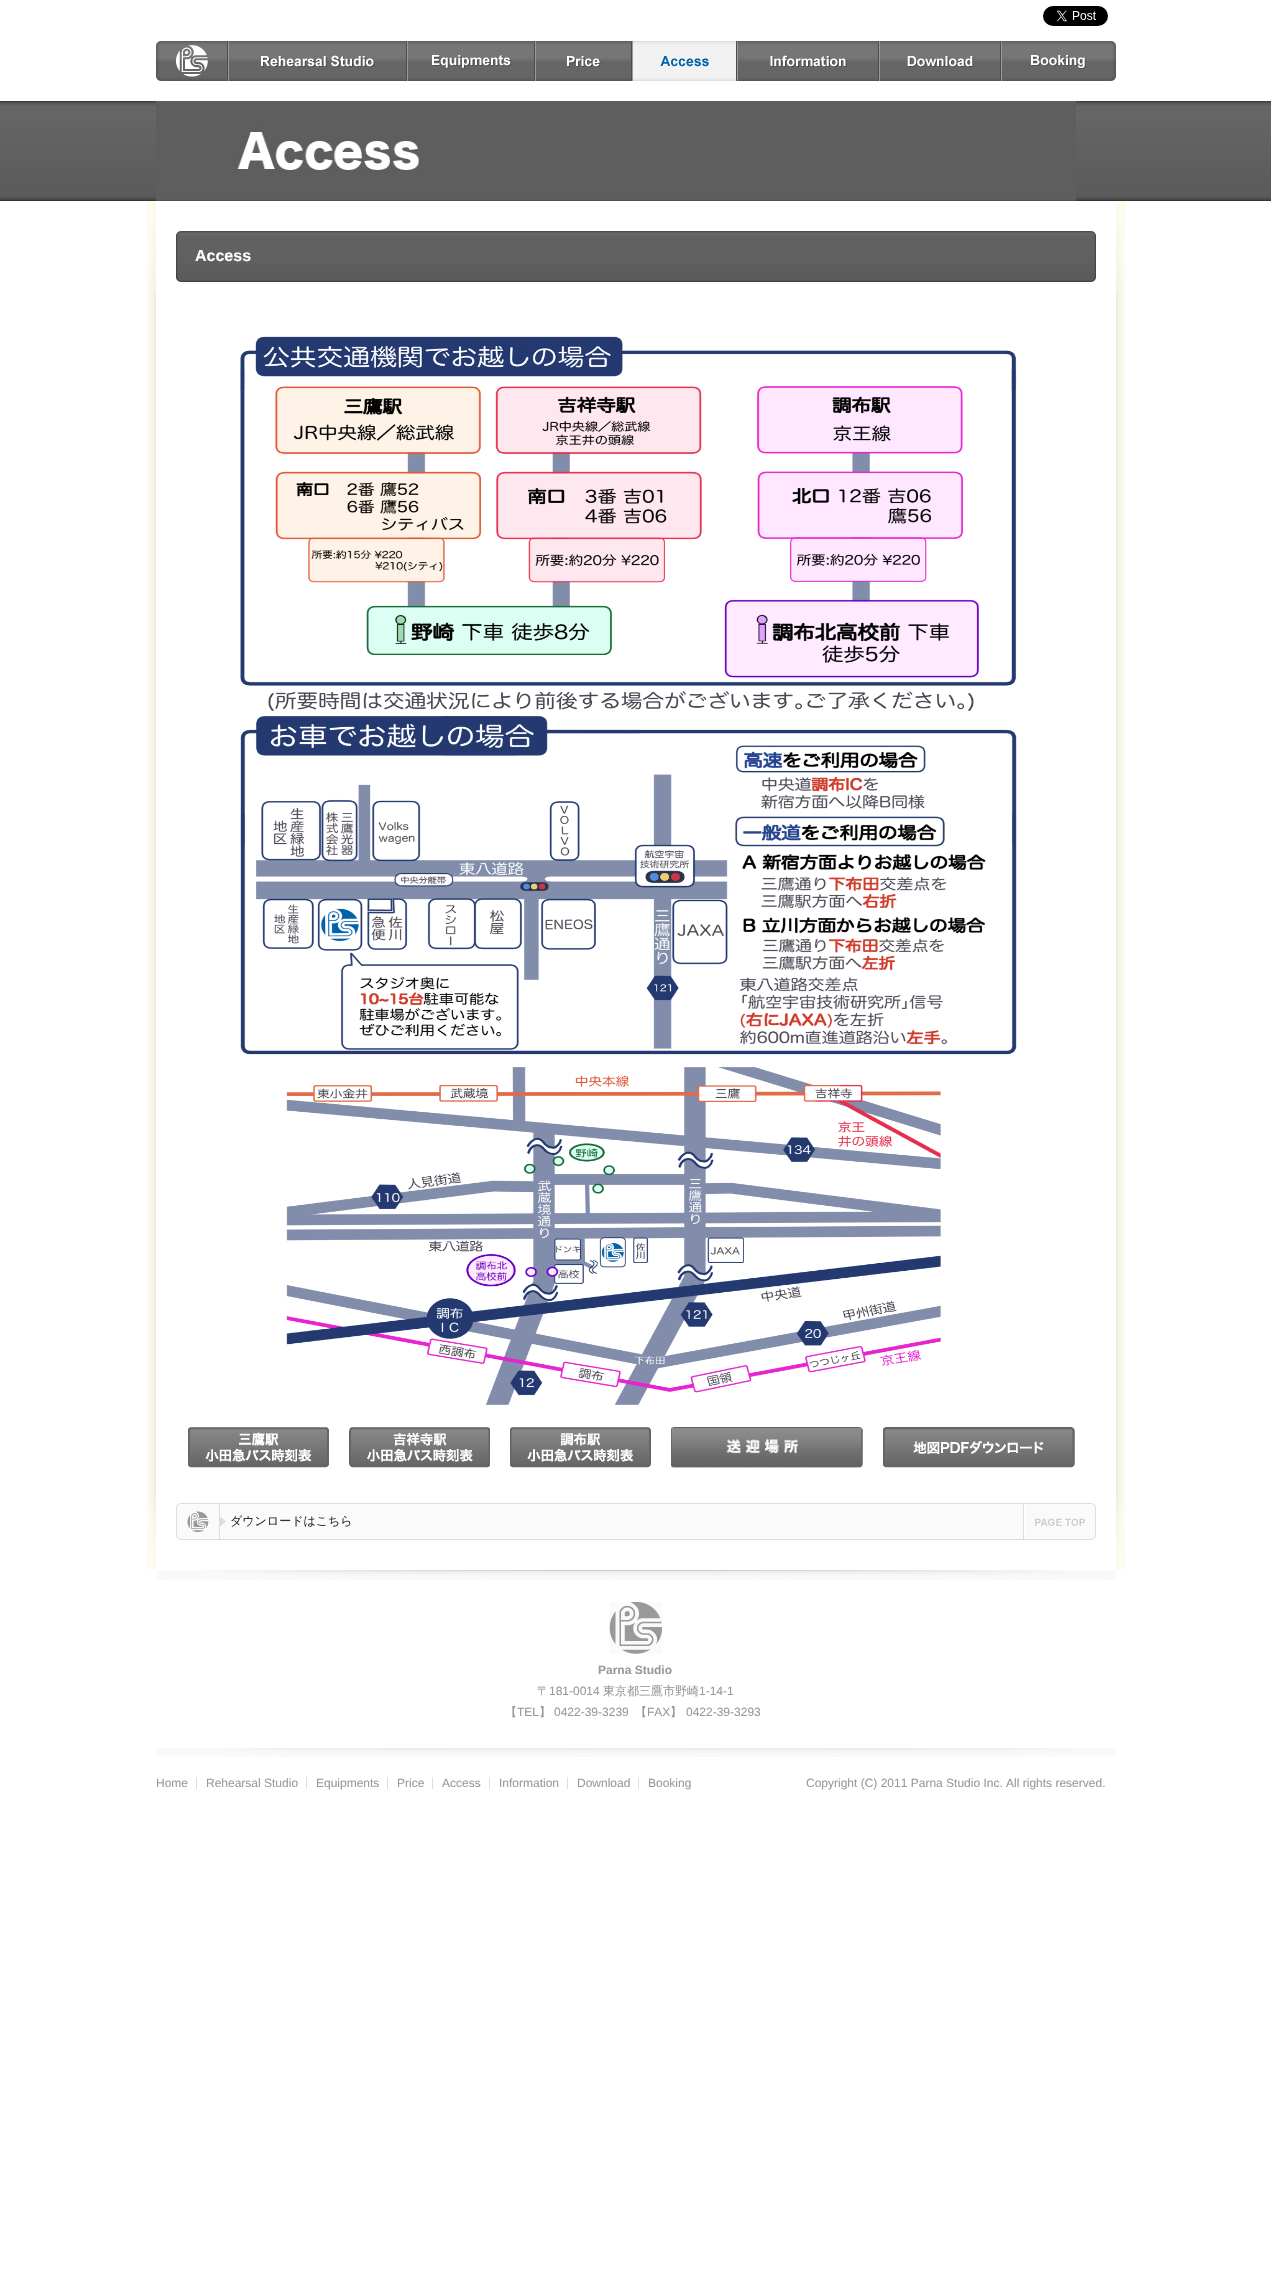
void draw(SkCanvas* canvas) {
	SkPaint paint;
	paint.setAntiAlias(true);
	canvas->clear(0xffffffff);
	canvas->drawImageRect(SkImages::DeferredFromEncodedData(SkData::MakeFromFileName("img1.png")), SkRect::MakeXYWH(1043, 6, 65, 20), SkSamplingOptions());
	canvas->drawImageRect(SkImages::DeferredFromEncodedData(SkData::MakeFromFileName("img2.png")), SkRect::MakeXYWH(156, 41, 72, 40), SkSamplingOptions());
	canvas->drawImageRect(SkImages::DeferredFromEncodedData(SkData::MakeFromFileName("img3.png")), SkRect::MakeXYWH(228, 41, 179, 40), SkSamplingOptions());
	canvas->drawImageRect(SkImages::DeferredFromEncodedData(SkData::MakeFromFileName("img4.png")), SkRect::MakeXYWH(407, 41, 128, 40), SkSamplingOptions());
	canvas->drawImageRect(SkImages::DeferredFromEncodedData(SkData::MakeFromFileName("img5.png")), SkRect::MakeXYWH(535, 41, 97, 40), SkSamplingOptions());
	canvas->drawImageRect(SkImages::DeferredFromEncodedData(SkData::MakeFromFileName("img6.png")), SkRect::MakeXYWH(632, 41, 105, 40), SkSamplingOptions());
	canvas->drawImageRect(SkImages::DeferredFromEncodedData(SkData::MakeFromFileName("img7.png")), SkRect::MakeXYWH(737, 41, 142, 40), SkSamplingOptions());
	canvas->drawImageRect(SkImages::DeferredFromEncodedData(SkData::MakeFromFileName("img8.png")), SkRect::MakeXYWH(879, 41, 122, 40), SkSamplingOptions());
	canvas->drawImageRect(SkImages::DeferredFromEncodedData(SkData::MakeFromFileName("img9.png")), SkRect::MakeXYWH(1001, 41, 115, 40), SkSamplingOptions());
	canvas->drawImageRect(SkImages::DeferredFromEncodedData(SkData::MakeFromFileName("img10.png")), SkRect::MakeXYWH(0, 101, 1271, 100), SkSamplingOptions());
	canvas->drawImageRect(SkImages::DeferredFromEncodedData(SkData::MakeFromFileName("img11.png")), SkRect::MakeXYWH(156, 101, 920, 100), SkSamplingOptions());
	canvas->drawImageRect(SkImages::DeferredFromEncodedData(SkData::MakeFromFileName("img12.png")), SkRect::MakeXYWH(147, 201, 978, 1369), SkSamplingOptions());
	canvas->drawImageRect(SkImages::DeferredFromEncodedData(SkData::MakeFromFileName("img13.png")), SkRect::MakeXYWH(149, 1498, 974, 72), SkSamplingOptions());
	canvas->drawImageRect(SkImages::DeferredFromEncodedData(SkData::MakeFromFileName("img14.png")), SkRect::MakeXYWH(149, 201, 974, 92), SkSamplingOptions());
	canvas->drawImageRect(SkImages::DeferredFromEncodedData(SkData::MakeFromFileName("img15.png")), SkRect::MakeXYWH(176, 236, 920, 46), SkSamplingOptions());
	canvas->drawImageRect(SkImages::DeferredFromEncodedData(SkData::MakeFromFileName("img16.png")), SkRect::MakeXYWH(176, 231, 920, 5), SkSamplingOptions());
	SkFont f1(fontMgr->matchFamilyStyle("Liberation Sans", SkFontStyle::Bold()), 16);
	f1.setSubpixel(true);
	paint.setColor(0xffffffff);
	canvas->drawString("Access", 195, 261, f1, paint);
	canvas->drawImageRect(SkImages::DeferredFromEncodedData(SkData::MakeFromFileName("img17.png")), SkRect::MakeXYWH(240, 336, 777, 1069), SkSamplingOptions());
	canvas->drawImageRect(SkImages::DeferredFromEncodedData(SkData::MakeFromFileName("img18.png")), SkRect::MakeXYWH(188, 1427, 141, 41), SkSamplingOptions());
	canvas->drawImageRect(SkImages::DeferredFromEncodedData(SkData::MakeFromFileName("img19.png")), SkRect::MakeXYWH(349, 1427, 141, 41), SkSamplingOptions());
	canvas->drawImageRect(SkImages::DeferredFromEncodedData(SkData::MakeFromFileName("img20.png")), SkRect::MakeXYWH(510, 1427, 141, 41), SkSamplingOptions());
	canvas->drawImageRect(SkImages::DeferredFromEncodedData(SkData::MakeFromFileName("img21.png")), SkRect::MakeXYWH(671, 1427, 192, 41), SkSamplingOptions());
	canvas->drawImageRect(SkImages::DeferredFromEncodedData(SkData::MakeFromFileName("img22.png")), SkRect::MakeXYWH(883, 1427, 192, 41), SkSamplingOptions());
	canvas->drawImageRect(SkImages::DeferredFromEncodedData(SkData::MakeFromFileName("img23.png")), SkRect::MakeXYWH(176, 1507, 920, 33), SkSamplingOptions());
	canvas->drawImageRect(SkImages::DeferredFromEncodedData(SkData::MakeFromFileName("img24.png")), SkRect::MakeXYWH(176, 1503, 920, 4), SkSamplingOptions());
	canvas->drawImageRect(SkImages::DeferredFromEncodedData(SkData::MakeFromFileName("img25.png")), SkRect::MakeXYWH(187, 1511, 22, 21), SkSamplingOptions());
	canvas->drawImageRect(SkImages::DeferredFromEncodedData(SkData::MakeFromFileName("img26.png")), SkRect::MakeXYWH(220, 1517, 6, 9), SkSamplingOptions());
	SkFont f2(fontMgr->matchFamilyStyle("WenQuanYi Zen Hei", SkFontStyle(500, SkFontStyle::kNormal_Width, SkFontStyle::kUpright_Slant)), 12);
	f2.setSubpixel(true);
	paint.setColor(0xff333333);
	canvas->drawString("ダウンロードはこちら", 230, 1525, f2, paint);
	canvas->drawImageRect(SkImages::DeferredFromEncodedData(SkData::MakeFromFileName("img27.png")), SkRect::MakeXYWH(1035, 1518, 51, 9), SkSamplingOptions());
	canvas->drawImageRect(SkImages::DeferredFromEncodedData(SkData::MakeFromFileName("img28.png")), SkRect::MakeXYWH(156, 1570, 960, 10), SkSamplingOptions());
	canvas->drawImageRect(SkImages::DeferredFromEncodedData(SkData::MakeFromFileName("img29.png")), SkRect::MakeXYWH(156, 1748, 960, 9), SkSamplingOptions());
	canvas->drawImageRect(SkImages::DeferredFromEncodedData(SkData::MakeFromFileName("img30.png")), SkRect::MakeXYWH(609, 1602, 53, 52), SkSamplingOptions());
	SkFont f3(fontMgr->matchFamilyStyle("Liberation Sans", SkFontStyle::Bold()), 12);
	f3.setSubpixel(true);
	paint.setColor(0xff999999);
	canvas->drawString("Parna Studio", 598, 1674, f3, paint);
	canvas->drawString("〒", 537, 1695, f2, paint);
	SkFont f4(fontMgr->matchFamilyStyle("Liberation Sans", SkFontStyle::Normal()), 12);
	f4.setSubpixel(true);
	canvas->drawString("181-0014", 549, 1695, f4, paint);
	canvas->drawString("東京都三鷹市野崎", 603, 1695, f2, paint);
	canvas->drawString("1-14-1", 699, 1695, f4, paint);
	canvas->drawString("【", 505, 1716, f2, paint);
	canvas->drawString("TEL", 517, 1716, f4, paint);
	canvas->drawString("】", 539, 1716, f2, paint);
	canvas->drawString("0422-39-3239", 554, 1716, f4, paint);
	canvas->drawString("【", 635, 1716, f2, paint);
	canvas->drawString("FAX", 647, 1716, f4, paint);
	canvas->drawString("】", 670, 1716, f2, paint);
	canvas->drawString("0422-39-3293", 686, 1716, f4, paint);
	canvas->drawString("Home", 156, 1787, f4, paint);
	paint.setColor(0xffe6dada);
	canvas->drawRect(SkRect::MakeXYWH(196, 1777, 1, 12), paint);
	paint.setColor(0xff999999);
	canvas->drawString("Rehearsal Studio", 206, 1787, f4, paint);
	paint.setColor(0xffe6dada);
	canvas->drawRect(SkRect::MakeXYWH(306, 1777, 1, 12), paint);
	paint.setColor(0xff999999);
	canvas->drawString("Equipments", 316, 1787, f4, paint);
	paint.setColor(0xffe6dada);
	canvas->drawRect(SkRect::MakeXYWH(387, 1777, 1, 12), paint);
	paint.setColor(0xff999999);
	canvas->drawString("Price", 397, 1787, f4, paint);
	paint.setColor(0xffe6dada);
	canvas->drawRect(SkRect::MakeXYWH(432, 1777, 1, 12), paint);
	paint.setColor(0xff999999);
	canvas->drawString("Access", 442, 1787, f4, paint);
	paint.setColor(0xffe6dada);
	canvas->drawRect(SkRect::MakeXYWH(489, 1777, 1, 12), paint);
	paint.setColor(0xff999999);
	canvas->drawString("Information", 499, 1787, f4, paint);
	paint.setColor(0xffe6dada);
	canvas->drawRect(SkRect::MakeXYWH(567, 1777, 1, 12), paint);
	paint.setColor(0xff999999);
	canvas->drawString("Download", 577, 1787, f4, paint);
	paint.setColor(0xffe6dada);
	canvas->drawRect(SkRect::MakeXYWH(638, 1777, 1, 12), paint);
	paint.setColor(0xff999999);
	canvas->drawString("Booking", 648, 1787, f4, paint);
	canvas->drawString("Copyright (C) 2011 Parna Studio Inc. All rights reserved.", 806, 1787, f4, paint);
}
